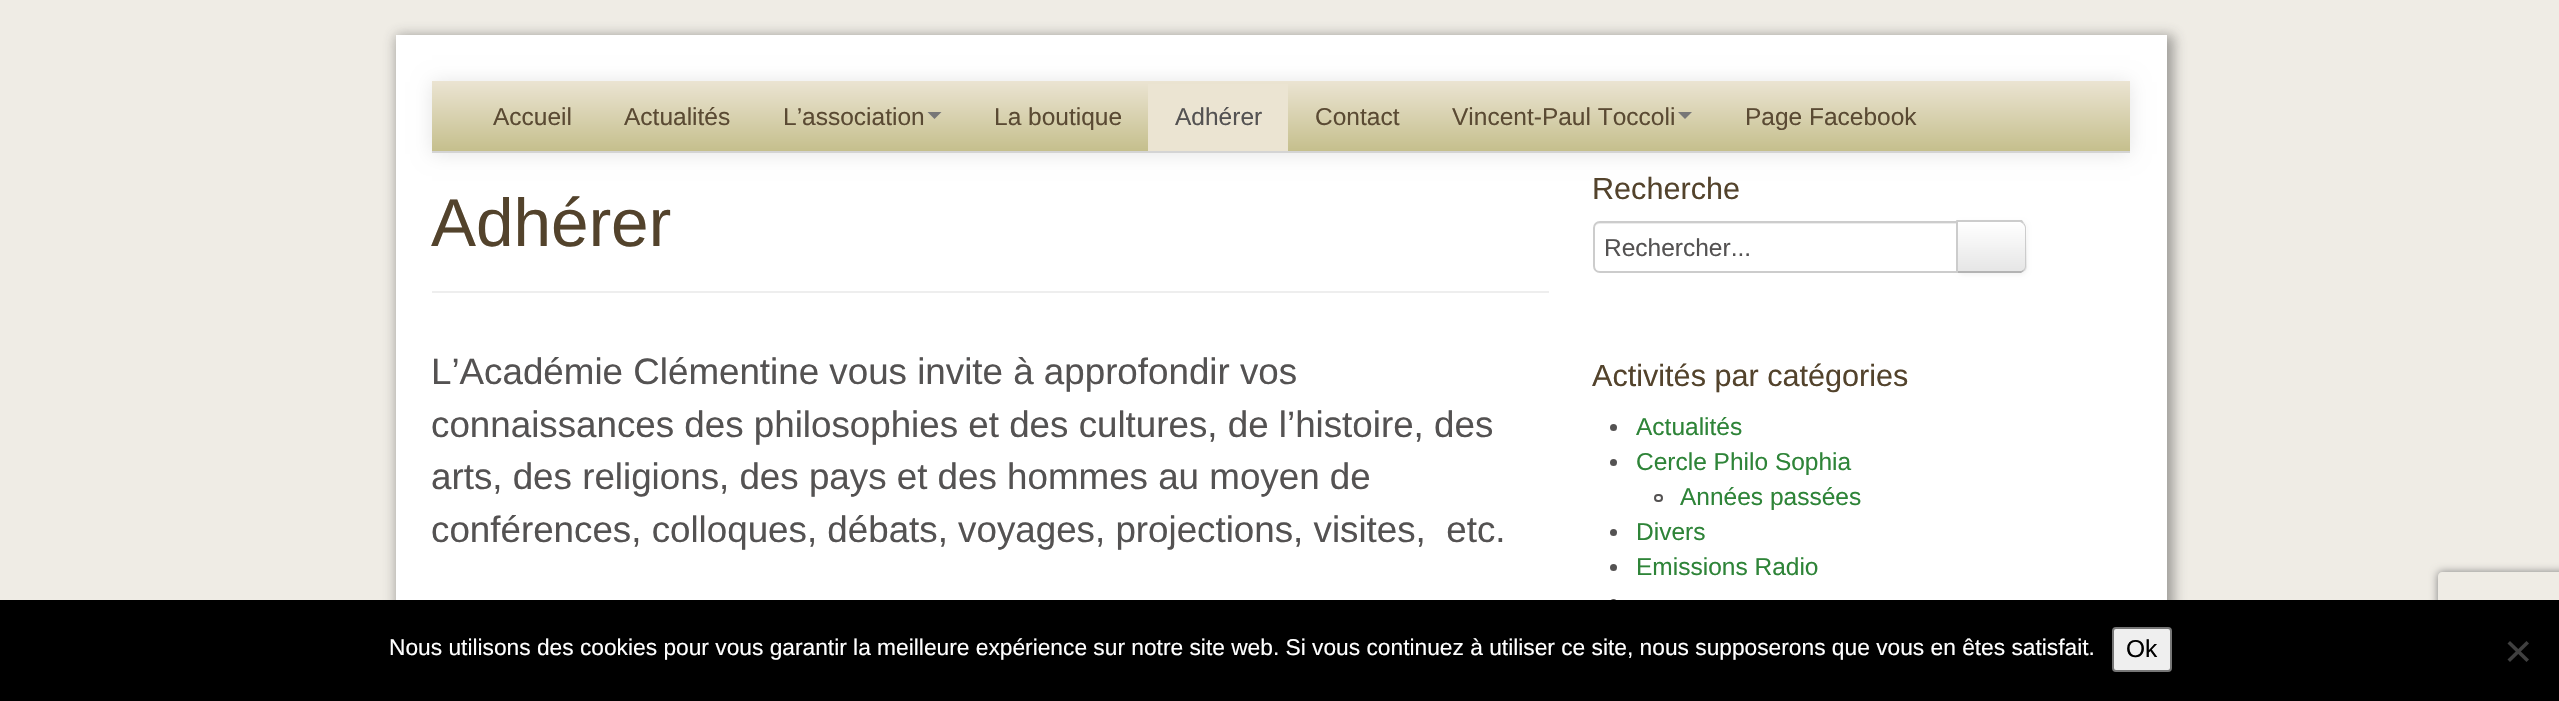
void draw(SkCanvas* canvas) {
	SkPaint paint;
	paint.setAntiAlias(true);
	auto svgPath = [&](const char* data, bool evenOdd = false) {
		SkPath result = *SkParsePath::FromSVGString(data);
		if (evenOdd) result.setFillType(SkPathFillType::kEvenOdd);
		return result;
	};
	canvas->clear(0xffefece5);
	paint.setColor(0x6b323232);
	paint.setMaskFilter(SkMaskFilter::MakeBlur(kNormal_SkBlurStyle, 6));
	canvas->drawRect(SkRect::MakeXYWH(396, 35, 1778, 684), paint);
	paint.setMaskFilter(nullptr);
	paint.setColor(0xffffffff);
	canvas->drawRect(SkRect::MakeXYWH(396, 35, 1771, 565), paint);
	paint.setColor(0x1a000000);
	paint.setMaskFilter(SkMaskFilter::MakeBlur(kNormal_SkBlurStyle, 9));
	canvas->drawRect(SkRect::MakeXYWH(432, 82, 1698, 72), paint);
	paint.setMaskFilter(nullptr);
	{
		const SkColor colors[] = {0xffebe4d2, 0xffc5bf8d};
		const float stops[] = {0, 1};
		const SkPoint ends[] = {{432, 81}, {432, 151}};
		paint.setShader(SkGradientShader::MakeLinear(ends, colors, stops, 2, SkTileMode::kClamp));
		paint.setAlpha(255);
	}
	canvas->drawRect(SkRect::MakeXYWH(432, 81, 1698, 70), paint);
	paint.setShader(nullptr);
	paint.setColor(0xffd4d4d4);
	canvas->drawRect(SkRect::MakeXYWH(432, 151, 1698, 2), paint);
	SkFont f1(fontMgr->matchFamilyStyle("Liberation Sans", SkFontStyle::Normal()), 24.5);
	f1.setSubpixel(true);
	paint.setColor(0xff5a4a33);
	canvas->drawString("Accueil", 493, 125, f1, paint);
	canvas->drawString("Actualités", 624, 125, f1, paint);
	canvas->drawString("L’association", 783, 125, f1, paint);
	paint.setColor(0xff777777);
	canvas->drawPath(svgPath("M927.5 112H941.5L934.5 119Z"), paint);
	paint.setColor(0xff5a4a33);
	canvas->drawString("La boutique", 994, 125, f1, paint);
	paint.setColor(0xffebe4d2);
	canvas->drawRect(SkRect::MakeXYWH(1148, 84, 140, 67), paint);
	paint.setColor(0xff545252);
	canvas->drawString("Adhérer", 1175, 125, f1, paint);
	paint.setColor(0xff5a4a33);
	canvas->drawString("Contact", 1315, 125, f1, paint);
	canvas->drawString("Vincent-Paul Toccoli", 1452, 125, f1, paint);
	paint.setColor(0xff777777);
	canvas->drawPath(svgPath("M1678 112H1692L1685 119Z"), paint);
	paint.setColor(0xff5a4a33);
	canvas->drawString("Page Facebook", 1745, 125, f1, paint);
	paint.setColor(0xffeeeeee);
	canvas->drawRect(SkRect::MakeXYWH(432, 291, 1117, 2), paint);
	SkFont f2(fontMgr->matchFamilyStyle("Liberation Sans", SkFontStyle::Normal()), 67.5);
	f2.setSubpixel(true);
	paint.setColor(0xff53432c);
	canvas->drawString("Adhérer", 431, 246, f2, paint);
	SkFont f3(fontMgr->matchFamilyStyle("Liberation Sans", SkFontStyle::Normal()), 36.75);
	f3.setSubpixel(true);
	paint.setColor(0xff545252);
	canvas->drawString("L’Académie Clémentine vous invite à approfondir vos", 431, 384, f3, paint);
	canvas->drawString("connaissances des philosophies et des cultures, de l’histoire, des", 431, 437, f3, paint);
	canvas->drawString("arts, des religions, des pays et des hommes au moyen de", 431, 489, f3, paint);
	canvas->drawString("conférences, colloques, débats, voyages, projections, visites,  etc.", 431, 542, f3, paint);
	canvas->save();
	canvas->clipPath(svgPath("M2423 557H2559V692H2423ZM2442 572H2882C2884 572 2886 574 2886 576V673C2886 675 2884 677 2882 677H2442C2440 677 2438 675 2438 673V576C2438 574 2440 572 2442 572Z", true), true);
	paint.setColor(0xff808080);
	paint.setMaskFilter(SkMaskFilter::MakeBlur(kNormal_SkBlurStyle, 4.5));
	canvas->drawRoundRect(SkRect::MakeXYWH(2438, 572, 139, 105), 4, 4, paint);
	paint.setMaskFilter(nullptr);
	canvas->restore();
	SkFont f4(fontMgr->matchFamilyStyle("Liberation Sans", SkFontStyle::Normal()), 30.6);
	f4.setSubpixel(true);
	paint.setColor(0xff53432c);
	canvas->drawString("Recherche", 1592, 199, f4, paint);
	paint.setColor(0x0d000000);
	paint.setMaskFilter(SkMaskFilter::MakeBlur(kNormal_SkBlurStyle, 2));
	canvas->drawRoundRect(SkRect::MakeXYWH(1957, 222, 70, 53), 7, 7, paint);
	paint.setMaskFilter(nullptr);
	paint.setColor(0xfff5f5f5);
	canvas->drawPath(svgPath("M1957 221H2020C2024 221 2027 224 2027 228V266C2027 270 2024 273 2020 273H1957Z"), paint);
	canvas->save();
	canvas->clipPath(svgPath("M1957 221H2020C2024 221 2027 224 2027 228V266C2027 270 2024 273 2020 273H1957Z"), true);
	{
		const SkColor colors[] = {0xffffffff, 0xffe6e6e6};
		const float stops[] = {0, 1};
		const SkPoint ends[] = {{1992, 222}, {1992, 271}};
		paint.setShader(SkGradientShader::MakeLinear(ends, colors, stops, 2, SkTileMode::kClamp));
		paint.setAlpha(255);
	}
	canvas->drawRect(SkRect::MakeXYWH(1958, 222, 69, 49), paint);
	canvas->restore();
	paint.setShader(nullptr);
	paint.setColor(0xffcccccc);
	canvas->drawPath(svgPath("M1958 222L1956 220H2022L2024 223L2023 224C2022 223 2021 222 2020 222Z"), paint);
	canvas->drawPath(svgPath("M2024 223C2025 224 2026 226 2026 228V266C2026 268 2025 270 2024 271L2023 270C2024 269 2025 268 2025 266V228C2025 226 2024 225 2023 224Z"), paint);
	paint.setColor(0xffb3b3b3);
	canvas->drawPath(svgPath("M1956 273H2021L2024 271L2023 270C2022 271 2021 271 2020 271H1958Z"), paint);
	paint.setColor(0xffcccccc);
	canvas->drawPath(svgPath("M1958 222L1956 220V273L1958 271Z"), paint);
	paint.setColor(0xffffffff);
	canvas->drawPath(svgPath("M1600 221H1958V273H1600C1596 273 1593 270 1593 266V228C1593 224 1596 221 1600 221Z"), paint);
	paint.setColor(0xffececec);
	canvas->drawPath(svgPath("M1600 224H1956V271H1957V222H1599C1595 222 1594 226 1594 229C1594 226 1597 224 1600 224Z"), paint);
	paint.setStroke(true);
	paint.setStrokeWidth(2);
	paint.setColor(0xffcccccc);
	canvas->drawPath(svgPath("M1600 222H1957V272H1600C1596.5 272 1594 269.5 1594 266V228C1594 224.5 1596.5 222 1600 222Z"), paint);
	paint.setStroke(false);
	paint.setColor(0xff545252);
	canvas->drawString("Rechercher...", 1604, 256, f1, paint);
	paint.setColor(0xff53432c);
	canvas->drawString("Activités par catégories", 1592, 386, f4, paint);
	paint.setColor(0xff545252);
	canvas->drawCircle(1613.5, 427.5, 3.5, paint);
	paint.setColor(0xff2e8438);
	canvas->drawString("Actualités", 1636, 435, f1, paint);
	paint.setColor(0xff545252);
	canvas->drawCircle(1613.5, 462.5, 3.5, paint);
	paint.setColor(0xff2e8438);
	canvas->drawString("Cercle Philo Sophia", 1636, 470, f1, paint);
	paint.setStroke(true);
	paint.setColor(0xff545252);
	canvas->drawRoundRect(SkRect::MakeXYWH(1655, 495, 7, 6), 3, 3, paint);
	paint.setStroke(false);
	paint.setColor(0xff2e8438);
	canvas->drawString("Années passées", 1680, 505, f1, paint);
	paint.setColor(0xff545252);
	canvas->drawCircle(1613.5, 532.5, 3.5, paint);
	paint.setColor(0xff2e8438);
	canvas->drawString("Divers", 1636, 540, f1, paint);
	paint.setColor(0xff545252);
	canvas->drawCircle(1613.5, 567.5, 3.5, paint);
	paint.setColor(0xff2e8438);
	canvas->drawString("Emissions Radio", 1636, 575, f1, paint);
	paint.setColor(0xff545252);
	canvas->drawCircle(1613.5, 602.5, 3.5, paint);
	paint.setColor(0xff000000);
	canvas->drawRect(SkRect::MakeXYWH(0, 600, 2559, 101), paint);
	SkFont f5(fontMgr->matchFamilyStyle("Liberation Sans", SkFontStyle::Normal()), 22.75);
	f5.setSubpixel(true);
	paint.setColor(0xffffffff);
	canvas->drawString("Nous utilisons des cookies pour vous garantir la meilleure expérience sur notre site web. Si vous continuez à utiliser ce site, nous supposerons que vous en êtes satisfait.", 389, 655, f5, paint);
	paint.setColor(0xffefefef);
	canvas->drawRoundRect(SkRect::MakeXYWH(2113, 628, 58, 43), 3, 3, paint);
	paint.setStroke(true);
	paint.setColor(0xff767676);
	canvas->drawRoundRect(SkRect::MakeXYWH(2113, 628, 58, 43), 3, 3, paint);
	paint.setStroke(false);
	paint.setColor(0xff000000);
	canvas->drawString("Ok", 2126, 657, f1, paint);
	paint.setColor(0xff404040);
	canvas->drawPath(svgPath("M2526.5 641L2529 643.5L2510 662L2507.5 659.5Z"), paint);
	canvas->drawPath(svgPath("M2507.5 643.5L2510 641L2529 659.5L2526.5 662Z"), paint);
}
